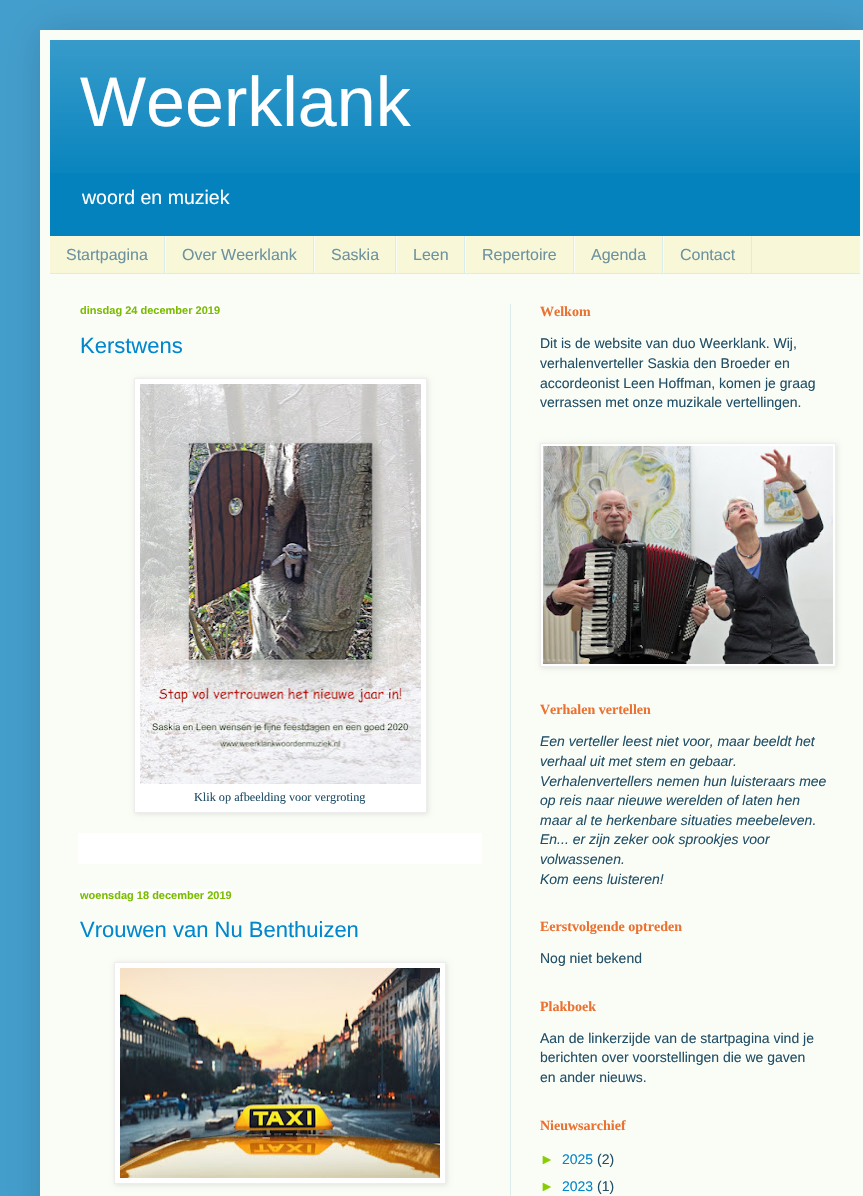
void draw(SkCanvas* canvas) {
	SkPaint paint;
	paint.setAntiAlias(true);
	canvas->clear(0xff449fce);
	paint.setColor(0x26000000);
	paint.setMaskFilter(SkMaskFilter::MakeBlur(kNormal_SkBlurStyle, 20));
	canvas->drawRect(SkRect::MakeXYWH(40, 30, 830, 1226), paint);
	paint.setMaskFilter(nullptr);
	paint.setColor(0xfffafcf6);
	canvas->drawRect(SkRect::MakeXYWH(40, 30, 823, 1166), paint);
	paint.setColor(0xff0482bd);
	canvas->drawRect(SkRect::MakeXYWH(50, 40, 810, 196), paint);
	canvas->drawImageRect(SkImages::DeferredFromEncodedData(SkData::MakeFromFileName("img1.png")), SkRect::MakeXYWH(50, 40, 810, 133), SkSamplingOptions());
	SkFont f1(fontMgr->matchFamilyStyle("Liberation Sans", SkFontStyle::Normal()), 70);
	f1.setSubpixel(true);
	paint.setColor(0xffffffff);
	canvas->drawString("Weerklank", 80, 126, f1, paint);
	SkFont f2(fontMgr->matchFamilyStyle("Liberation Sans", SkFontStyle::Normal()), 19.5);
	f2.setSubpixel(true);
	canvas->drawString("woord en muziek", 82, 204, f2, paint);
	paint.setColor(0xfff8f8d9);
	canvas->drawRect(SkRect::MakeXYWH(50, 236, 810, 37), paint);
	paint.setColor(0xffdbeced);
	canvas->drawRect(SkRect::MakeXYWH(50, 273, 810, 1), paint);
	canvas->drawRect(SkRect::MakeXYWH(164, 236, 1, 37), paint);
	SkFont f3(fontMgr->matchFamilyStyle("Liberation Sans", SkFontStyle::Normal()), 16);
	f3.setSubpixel(true);
	paint.setColor(0xff6e929f);
	canvas->drawString("Startpagina", 66, 260, f3, paint);
	paint.setColor(0xffdbeced);
	canvas->drawRect(SkRect::MakeXYWH(313, 236, 1, 37), paint);
	paint.setColor(0xfffafcf6);
	canvas->drawRect(SkRect::MakeXYWH(165, 236, 1, 37), paint);
	paint.setColor(0xff6e929f);
	canvas->drawString("Over Weerklank", 182, 260, f3, paint);
	paint.setColor(0xffdbeced);
	canvas->drawRect(SkRect::MakeXYWH(395, 236, 1, 37), paint);
	paint.setColor(0xfffafcf6);
	canvas->drawRect(SkRect::MakeXYWH(314, 236, 1, 37), paint);
	paint.setColor(0xff6e929f);
	canvas->drawString("Saskia", 331, 260, f3, paint);
	paint.setColor(0xffdbeced);
	canvas->drawRect(SkRect::MakeXYWH(464, 236, 1, 37), paint);
	paint.setColor(0xfffafcf6);
	canvas->drawRect(SkRect::MakeXYWH(396, 236, 1, 37), paint);
	paint.setColor(0xff6e929f);
	canvas->drawString("Leen", 413, 260, f3, paint);
	paint.setColor(0xffdbeced);
	canvas->drawRect(SkRect::MakeXYWH(573, 236, 1, 37), paint);
	paint.setColor(0xfffafcf6);
	canvas->drawRect(SkRect::MakeXYWH(465, 236, 1, 37), paint);
	paint.setColor(0xff6e929f);
	canvas->drawString("Repertoire", 482, 260, f3, paint);
	paint.setColor(0xffdbeced);
	canvas->drawRect(SkRect::MakeXYWH(662, 236, 1, 37), paint);
	paint.setColor(0xfffafcf6);
	canvas->drawRect(SkRect::MakeXYWH(574, 236, 1, 37), paint);
	paint.setColor(0xff6e929f);
	canvas->drawString("Agenda", 591, 260, f3, paint);
	paint.setColor(0xffdbeced);
	canvas->drawRect(SkRect::MakeXYWH(751, 236, 1, 37), paint);
	paint.setColor(0xfffafcf6);
	canvas->drawRect(SkRect::MakeXYWH(663, 236, 1, 37), paint);
	paint.setColor(0xff6e929f);
	canvas->drawString("Contact", 680, 260, f3, paint);
	paint.setColor(0xffdbeced);
	canvas->drawRect(SkRect::MakeXYWH(510, 304, 1, 892), paint);
	paint.setColor(0xffffffff);
	canvas->drawRect(SkRect::MakeXYWH(80, 304, 140, 12), paint);
	SkFont f4(fontMgr->matchFamilyStyle("Liberation Sans", SkFontStyle::Bold()), 11);
	f4.setSubpixel(true);
	paint.setColor(0xff7abd00);
	canvas->drawString("dinsdag 24 december 2019", 80, 314, f4, paint);
	SkFont f5(fontMgr->matchFamilyStyle("Liberation Sans", SkFontStyle::Normal()), 22);
	f5.setSubpixel(true);
	paint.setColor(0xff0087ce);
	canvas->drawString("Kerstwens", 80, 353, f5, paint);
	paint.setColor(0x1a000000);
	paint.setMaskFilter(SkMaskFilter::MakeBlur(kNormal_SkBlurStyle, 2.5));
	canvas->drawRect(SkRect::MakeXYWH(135, 379, 293, 435), paint);
	paint.setMaskFilter(nullptr);
	paint.setColor(0xffffffff);
	canvas->drawRect(SkRect::MakeXYWH(134.5, 378.5, 292, 434), paint);
	paint.setStroke(true);
	paint.setStrokeWidth(1);
	paint.setColor(0xffededed);
	canvas->drawRect(SkRect::MakeXYWH(134.5, 378.5, 292, 434), paint);
	canvas->drawImageRect(SkImages::DeferredFromEncodedData(SkData::MakeFromFileName("img2.png")), SkRect::MakeXYWH(140, 384, 281, 400), SkSamplingOptions());
	SkFont f6(fontMgr->matchFamilyStyle("Liberation Serif", SkFontStyle::Normal()), 12.25);
	f6.setSubpixel(true);
	paint.setStroke(false);
	paint.setColor(0xff214f67);
	canvas->drawString("Klik op afbeelding voor vergroting", 194, 801, f6, paint);
	paint.setColor(0xffffffff);
	canvas->drawRect(SkRect::MakeXYWH(78, 833, 404, 31), paint);
	canvas->drawRect(SkRect::MakeXYWH(80, 889, 152, 12), paint);
	paint.setColor(0xff7abd00);
	canvas->drawString("woensdag 18 december 2019", 80, 899, f4, paint);
	paint.setColor(0xff0087ce);
	canvas->drawString("Vrouwen van Nu Benthuizen", 80, 937, f5, paint);
	paint.setColor(0x1a000000);
	paint.setMaskFilter(SkMaskFilter::MakeBlur(kNormal_SkBlurStyle, 2.5));
	canvas->drawRect(SkRect::MakeXYWH(115, 963, 332, 222), paint);
	paint.setMaskFilter(nullptr);
	paint.setColor(0xffffffff);
	canvas->drawRect(SkRect::MakeXYWH(114.5, 962.5, 331, 221), paint);
	paint.setStroke(true);
	paint.setColor(0xffededed);
	canvas->drawRect(SkRect::MakeXYWH(114.5, 962.5, 331, 221), paint);
	canvas->drawImageRect(SkImages::DeferredFromEncodedData(SkData::MakeFromFileName("img3.png")), SkRect::MakeXYWH(120, 968, 320, 210), SkSamplingOptions());
	SkFont f7(fontMgr->matchFamilyStyle("Liberation Serif", SkFontStyle::Bold()), 14);
	f7.setSubpixel(true);
	paint.setStroke(false);
	paint.setColor(0xffeb7131);
	canvas->drawString("Welkom", 540, 316, f7, paint);
	SkFont f8(fontMgr->matchFamilyStyle("Liberation Sans", SkFontStyle::Normal()), 14);
	f8.setSubpixel(true);
	paint.setColor(0xff214f67);
	canvas->drawString("Dit is de website van duo Weerklank. Wij,", 540, 348, f8, paint);
	canvas->drawString("verhalenverteller Saskia den Broeder en", 540, 368, f8, paint);
	canvas->drawString("accordeonist Leen Hoffman, komen je graag", 540, 388, f8, paint);
	canvas->drawString("verrassen met onze muzikale vertellingen.", 540, 407, f8, paint);
	paint.setColor(0x1a000000);
	paint.setMaskFilter(SkMaskFilter::MakeBlur(kNormal_SkBlurStyle, 2.5));
	canvas->drawRect(SkRect::MakeXYWH(541, 444, 296, 224), paint);
	paint.setMaskFilter(nullptr);
	paint.setColor(0xffffffff);
	canvas->drawRect(SkRect::MakeXYWH(540.5, 443.5, 295, 223), paint);
	paint.setStroke(true);
	paint.setColor(0xffededed);
	canvas->drawRect(SkRect::MakeXYWH(540.5, 443.5, 295, 223), paint);
	canvas->drawImageRect(SkImages::DeferredFromEncodedData(SkData::MakeFromFileName("img4.png")), SkRect::MakeXYWH(543, 446, 290, 218), SkSamplingOptions());
	paint.setStroke(false);
	paint.setColor(0xffeb7131);
	canvas->drawString("Verhalen vertellen", 540, 714, f7, paint);
	SkFont f9(fontMgr->matchFamilyStyle("Liberation Sans", SkFontStyle::Italic()), 14);
	f9.setSubpixel(true);
	paint.setColor(0xff214f67);
	canvas->drawString("Een verteller leest niet voor, maar beeldt het", 540, 746, f9, paint);
	canvas->drawString("verhaal uit met stem en gebaar.", 540, 766, f9, paint);
	canvas->drawString("Verhalenvertellers nemen hun luisteraars mee", 540, 786, f9, paint);
	canvas->drawString("op reis naar nieuwe werelden of laten hen", 540, 805, f9, paint);
	canvas->drawString("maar al te herkenbare situaties meebeleven.", 540, 825, f9, paint);
	canvas->drawString("En... er zijn zeker ook sprookjes voor", 540, 844, f9, paint);
	canvas->drawString("volwassenen.", 540, 864, f9, paint);
	canvas->drawString("Kom eens luisteren!", 540, 884, f9, paint);
	paint.setColor(0xffeb7131);
	canvas->drawString("Eerstvolgende optreden", 540, 931, f7, paint);
	paint.setColor(0xff214f67);
	canvas->drawString("Nog niet bekend", 540, 963, f8, paint);
	paint.setColor(0xffeb7131);
	canvas->drawString("Plakboek", 540, 1011, f7, paint);
	paint.setColor(0xff214f67);
	canvas->drawString("Aan de linkerzijde van de startpagina vind je", 540, 1043, f8, paint);
	canvas->drawString("berichten over voorstellingen die we gaven", 540, 1062, f8, paint);
	canvas->drawString("en ander nieuws.", 540, 1082, f8, paint);
	paint.setColor(0xffeb7131);
	canvas->drawString("Nieuwsarchief", 540, 1130, f7, paint);
	paint.setColor(0xff87ce00);
	canvas->drawString("►", 540, 1164, f8, paint);
	paint.setColor(0xff0087ce);
	canvas->drawString("2025", 562, 1164, f8, paint);
	paint.setColor(0xff214f67);
	canvas->drawString("(2)", 597, 1164, f8, paint);
	paint.setColor(0xff87ce00);
	canvas->drawString("►", 540, 1191, f8, paint);
	paint.setColor(0xff0087ce);
	canvas->drawString("2023", 562, 1191, f8, paint);
	paint.setColor(0xff214f67);
	canvas->drawString("(1)", 597, 1191, f8, paint);
}
